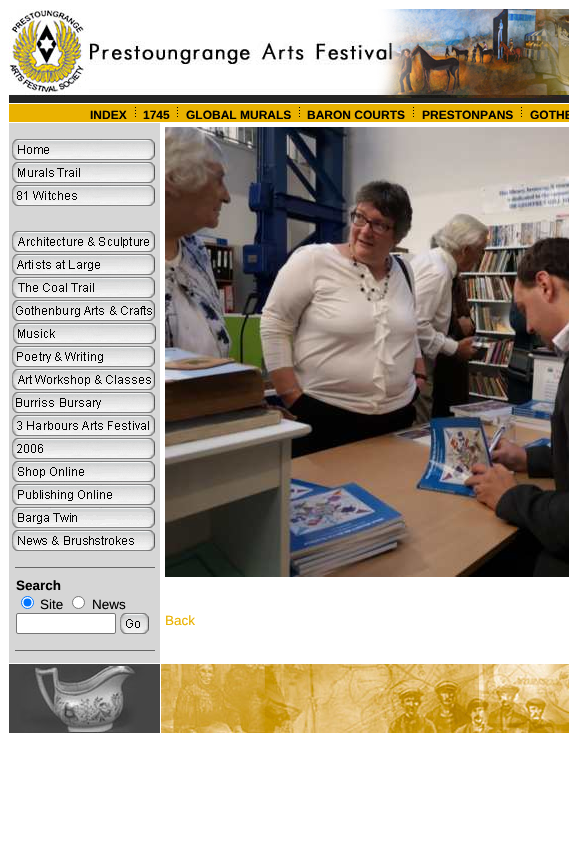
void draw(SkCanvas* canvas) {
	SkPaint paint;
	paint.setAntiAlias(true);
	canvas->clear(0xffffffff);
	canvas->drawImageRect(SkImages::DeferredFromEncodedData(SkData::MakeFromFileName("img1.png")), SkRect::MakeXYWH(9, 9, 560, 94), SkSamplingOptions());
	paint.setColor(0xffeab200);
	canvas->drawRect(SkRect::MakeXYWH(9, 104, 560, 18), paint);
	SkFont f1(fontMgr->matchFamilyStyle("Liberation Sans", SkFontStyle::Bold()), 12);
	f1.setSubpixel(true);
	paint.setColor(0xff000000);
	canvas->drawString("INDEX", 90, 119, f1, paint);
	canvas->drawImageRect(SkImages::DeferredFromEncodedData(SkData::MakeFromFileName("img2.png")), SkRect::MakeXYWH(135, 107, 1, 10), SkSamplingOptions());
	canvas->drawString("1745", 143, 119, f1, paint);
	canvas->drawImageRect(SkImages::DeferredFromEncodedData(SkData::MakeFromFileName("img2.png")), SkRect::MakeXYWH(177, 107, 1, 10), SkSamplingOptions());
	canvas->drawString("GLOBAL MURALS", 186, 119, f1, paint);
	canvas->drawImageRect(SkImages::DeferredFromEncodedData(SkData::MakeFromFileName("img2.png")), SkRect::MakeXYWH(299, 107, 1, 10), SkSamplingOptions());
	canvas->drawString("BARON COURTS", 307, 119, f1, paint);
	canvas->drawImageRect(SkImages::DeferredFromEncodedData(SkData::MakeFromFileName("img2.png")), SkRect::MakeXYWH(413, 107, 1, 10), SkSamplingOptions());
	canvas->drawString("PRESTONPANS", 422, 119, f1, paint);
	canvas->drawImageRect(SkImages::DeferredFromEncodedData(SkData::MakeFromFileName("img2.png")), SkRect::MakeXYWH(521, 107, 1, 10), SkSamplingOptions());
	canvas->drawString("GOTHE", 530, 119, f1, paint);
	paint.setColor(0xffd6d6d6);
	canvas->drawRect(SkRect::MakeXYWH(9, 123, 151, 540), paint);
	canvas->drawImageRect(SkImages::DeferredFromEncodedData(SkData::MakeFromFileName("img3.png")), SkRect::MakeXYWH(12, 139, 143, 21), SkSamplingOptions());
	canvas->drawImageRect(SkImages::DeferredFromEncodedData(SkData::MakeFromFileName("img4.png")), SkRect::MakeXYWH(12, 162, 143, 21), SkSamplingOptions());
	canvas->drawImageRect(SkImages::DeferredFromEncodedData(SkData::MakeFromFileName("img5.png")), SkRect::MakeXYWH(12, 185, 143, 21), SkSamplingOptions());
	canvas->drawImageRect(SkImages::DeferredFromEncodedData(SkData::MakeFromFileName("img6.png")), SkRect::MakeXYWH(12, 231, 143, 21), SkSamplingOptions());
	canvas->drawImageRect(SkImages::DeferredFromEncodedData(SkData::MakeFromFileName("img7.png")), SkRect::MakeXYWH(12, 254, 143, 21), SkSamplingOptions());
	canvas->drawImageRect(SkImages::DeferredFromEncodedData(SkData::MakeFromFileName("img8.png")), SkRect::MakeXYWH(12, 277, 143, 21), SkSamplingOptions());
	canvas->drawImageRect(SkImages::DeferredFromEncodedData(SkData::MakeFromFileName("img9.png")), SkRect::MakeXYWH(12, 300, 143, 21), SkSamplingOptions());
	canvas->drawImageRect(SkImages::DeferredFromEncodedData(SkData::MakeFromFileName("img10.png")), SkRect::MakeXYWH(13, 323, 143, 21), SkSamplingOptions());
	canvas->drawImageRect(SkImages::DeferredFromEncodedData(SkData::MakeFromFileName("img11.png")), SkRect::MakeXYWH(12, 346, 143, 21), SkSamplingOptions());
	canvas->drawImageRect(SkImages::DeferredFromEncodedData(SkData::MakeFromFileName("img12.png")), SkRect::MakeXYWH(12, 369, 143, 21), SkSamplingOptions());
	canvas->drawImageRect(SkImages::DeferredFromEncodedData(SkData::MakeFromFileName("img13.png")), SkRect::MakeXYWH(12, 392, 143, 21), SkSamplingOptions());
	canvas->drawImageRect(SkImages::DeferredFromEncodedData(SkData::MakeFromFileName("img14.png")), SkRect::MakeXYWH(12, 415, 143, 21), SkSamplingOptions());
	canvas->drawImageRect(SkImages::DeferredFromEncodedData(SkData::MakeFromFileName("img15.png")), SkRect::MakeXYWH(12, 438, 143, 21), SkSamplingOptions());
	canvas->drawImageRect(SkImages::DeferredFromEncodedData(SkData::MakeFromFileName("img16.png")), SkRect::MakeXYWH(12, 461, 143, 21), SkSamplingOptions());
	canvas->drawImageRect(SkImages::DeferredFromEncodedData(SkData::MakeFromFileName("img17.png")), SkRect::MakeXYWH(12, 484, 143, 21), SkSamplingOptions());
	canvas->drawImageRect(SkImages::DeferredFromEncodedData(SkData::MakeFromFileName("img18.png")), SkRect::MakeXYWH(12, 507, 143, 21), SkSamplingOptions());
	canvas->drawImageRect(SkImages::DeferredFromEncodedData(SkData::MakeFromFileName("img19.png")), SkRect::MakeXYWH(12, 530, 143, 21), SkSamplingOptions());
	paint.setColor(0xff666666);
	canvas->drawRect(SkRect::MakeXYWH(15, 567, 140, 1), paint);
	canvas->drawRect(SkRect::MakeXYWH(15, 650, 140, 1), paint);
	SkFont f2(fontMgr->matchFamilyStyle("Liberation Sans", SkFontStyle::Bold()), 13.5);
	f2.setSubpixel(true);
	paint.setColor(0xff000000);
	canvas->drawString("Search", 16, 590, f2, paint);
	paint.setColor(0xffffffff);
	canvas->drawCircle(27.5, 602.5, 6, paint);
	paint.setStroke(true);
	paint.setStrokeWidth(1);
	paint.setColor(0xff0075ff);
	canvas->drawCircle(27.5, 602.5, 6, paint);
	paint.setStroke(false);
	canvas->drawCircle(27.5, 602.5, 4, paint);
	SkFont f3(fontMgr->matchFamilyStyle("Liberation Sans", SkFontStyle::Normal()), 13.5);
	f3.setSubpixel(true);
	paint.setColor(0xff000000);
	canvas->drawString("Site", 40, 609, f3, paint);
	paint.setColor(0xffffffff);
	canvas->drawCircle(78.5, 602.5, 6, paint);
	paint.setStroke(true);
	paint.setColor(0xff767676);
	canvas->drawCircle(78.5, 602.5, 6, paint);
	paint.setStroke(false);
	paint.setColor(0xff000000);
	canvas->drawString("News", 92, 609, f3, paint);
	paint.setColor(0xffffffff);
	canvas->drawRoundRect(SkRect::MakeXYWH(16.5, 613.5, 99, 20), 1.5, 1.5, paint);
	paint.setStroke(true);
	paint.setColor(0xff767676);
	canvas->drawRoundRect(SkRect::MakeXYWH(16.5, 613.5, 99, 20), 1.5, 1.5, paint);
	canvas->drawImageRect(SkImages::DeferredFromEncodedData(SkData::MakeFromFileName("img20.png")), SkRect::MakeXYWH(120, 613, 29, 21), SkSamplingOptions());
	canvas->drawImageRect(SkImages::DeferredFromEncodedData(SkData::MakeFromFileName("img21.png")), SkRect::MakeXYWH(165, 127, 404, 450), SkSamplingOptions());
	paint.setStroke(false);
	paint.setColor(0xffeab200);
	canvas->drawString("Back", 165, 625, f3, paint);
	canvas->drawImageRect(SkImages::DeferredFromEncodedData(SkData::MakeFromFileName("img22.png")), SkRect::MakeXYWH(9, 664, 151, 69), SkSamplingOptions());
	canvas->drawImageRect(SkImages::DeferredFromEncodedData(SkData::MakeFromFileName("img23.png")), SkRect::MakeXYWH(161, 664, 408, 69), SkSamplingOptions());
}
